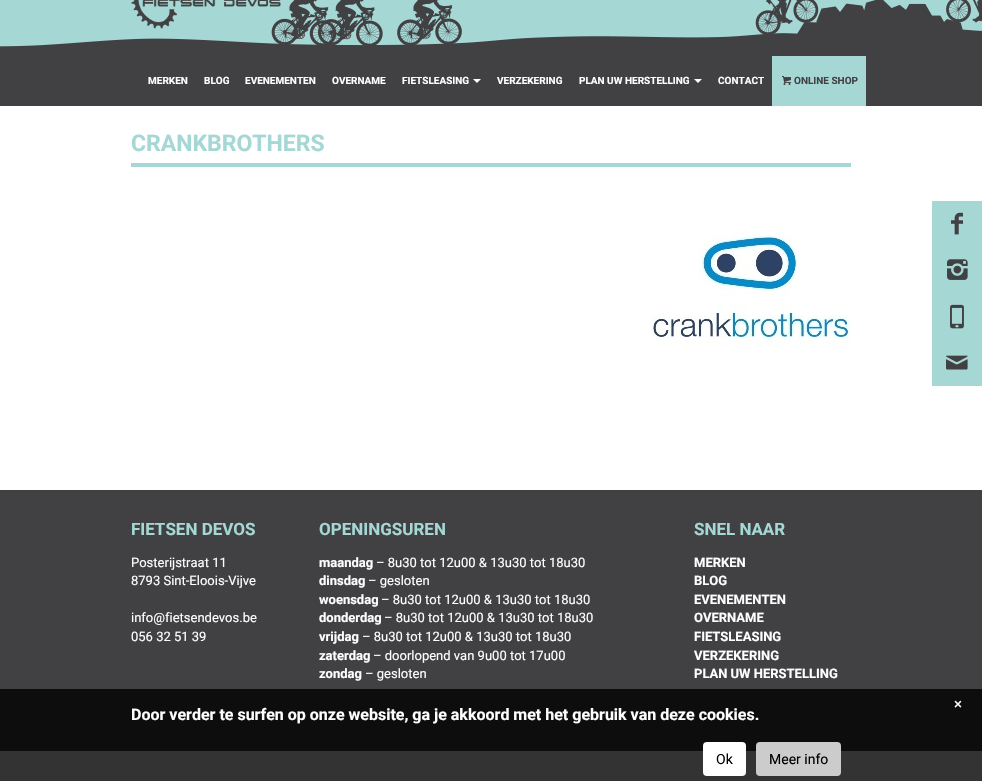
void draw(SkCanvas* canvas) {
	SkPaint paint;
	paint.setAntiAlias(true);
	auto svgPath = [&](const char* data, bool evenOdd = false) {
		SkPath result = *SkParsePath::FromSVGString(data);
		if (evenOdd) result.setFillType(SkPathFillType::kEvenOdd);
		return result;
	};
	canvas->clear(0xffffffff);
	paint.setColor(0xffa5d7d5);
	canvas->drawRect(SkRect::MakeXYWH(0, 0, 982, 47), paint);
	canvas->drawImageRect(SkImages::DeferredFromEncodedData(SkData::MakeFromFileName("img1.png")), SkRect::MakeXYWH(0, 0, 982, 56), SkSamplingOptions());
	canvas->drawImageRect(SkImages::DeferredFromEncodedData(SkData::MakeFromFileName("img2.png")), SkRect::MakeXYWH(131, 0, 150, 29), SkSamplingOptions());
	paint.setColor(0xff414042);
	canvas->drawRect(SkRect::MakeXYWH(0, 56, 982, 50), paint);
	SkFont f1(fontMgr->matchFamilyStyle("Roboto", SkFontStyle::Bold()), 10);
	f1.setSubpixel(true);
	paint.setColor(0xffffffff);
	canvas->drawString("MERKEN", 148, 84, f1, paint);
	canvas->drawString("BLOG", 204, 84, f1, paint);
	canvas->drawString("EVENEMENTEN", 245, 84, f1, paint);
	canvas->drawString("OVERNAME", 332, 84, f1, paint);
	canvas->drawString("FIETSLEASING", 402, 84, f1, paint);
	canvas->drawPath(svgPath("M473 79H481L477 83Z"), paint);
	canvas->drawString("VERZEKERING", 497, 84, f1, paint);
	canvas->drawString("PLAN UW HERSTELLING", 579, 84, f1, paint);
	canvas->drawPath(svgPath("M694 79H702L698 83Z"), paint);
	canvas->drawString("CONTACT", 718, 84, f1, paint);
	paint.setColor(0xffa5d7d5);
	canvas->drawRect(SkRect::MakeXYWH(772, 56, 94, 50), paint);
	canvas->drawImageRect(SkImages::DeferredFromEncodedData(SkData::MakeFromFileName("img3.png")), SkRect::MakeXYWH(782, 76, 9, 9), SkSamplingOptions());
	paint.setColor(0xff414042);
	canvas->drawString("ONLINE SHOP", 794, 84, f1, paint);
	paint.setColor(0xffa5d7d5);
	canvas->drawRect(SkRect::MakeXYWH(131, 163, 720, 4), paint);
	SkFont f2(fontMgr->matchFamilyStyle("Roboto", SkFontStyle::Bold()), 23);
	f2.setSubpixel(true);
	canvas->drawString("CRANKBROTHERS", 131, 151, f2, paint);
	canvas->drawImageRect(SkImages::DeferredFromEncodedData(SkData::MakeFromFileName("img4.png")), SkRect::MakeXYWH(651, 230, 200, 117), SkSamplingOptions());
	canvas->drawRect(SkRect::MakeXYWH(932, 201, 50, 185), paint);
	canvas->drawImageRect(SkImages::DeferredFromEncodedData(SkData::MakeFromFileName("img5.png")), SkRect::MakeXYWH(951, 212, 12, 23), SkSamplingOptions());
	canvas->drawImageRect(SkImages::DeferredFromEncodedData(SkData::MakeFromFileName("img6.png")), SkRect::MakeXYWH(947, 259, 21, 21), SkSamplingOptions());
	canvas->drawImageRect(SkImages::DeferredFromEncodedData(SkData::MakeFromFileName("img7.png")), SkRect::MakeXYWH(950, 304, 14, 25), SkSamplingOptions());
	canvas->drawImageRect(SkImages::DeferredFromEncodedData(SkData::MakeFromFileName("img8.png")), SkRect::MakeXYWH(946, 355, 22, 15), SkSamplingOptions());
	paint.setColor(0xff414042);
	canvas->drawRect(SkRect::MakeXYWH(0, 490, 982, 261), paint);
	SkFont f3(fontMgr->matchFamilyStyle("Roboto", SkFontStyle::Bold()), 17);
	f3.setSubpixel(true);
	paint.setColor(0xffa5d7d5);
	canvas->drawString("FIETSEN DEVOS", 131, 535, f3, paint);
	SkFont f4(fontMgr->matchFamilyStyle("Roboto", SkFontStyle::Normal()), 13);
	f4.setSubpixel(true);
	paint.setColor(0xffffffff);
	canvas->drawString("Posterijstraat 11", 131, 567, f4, paint);
	canvas->drawString("8793 Sint-Eloois-Vijve", 131, 585, f4, paint);
	canvas->drawString("info@fietsendevos.be", 131, 622, f4, paint);
	canvas->drawString("056 32 51 39", 131, 641, f4, paint);
	paint.setColor(0xffa5d7d5);
	canvas->drawString("OPENINGSUREN", 319, 535, f3, paint);
	SkFont f5(fontMgr->matchFamilyStyle("Roboto", SkFontStyle::Bold()), 13);
	f5.setSubpixel(true);
	paint.setColor(0xffffffff);
	canvas->drawString("maandag", 319, 567, f5, paint);
	canvas->drawString("– 8u30 tot 12u00 & 13u30 tot 18u30", 376, 567, f4, paint);
	canvas->drawString("dinsdag", 319, 585, f5, paint);
	canvas->drawString("– gesloten", 368, 585, f4, paint);
	canvas->drawString("woensdag", 319, 604, f5, paint);
	canvas->drawString("– 8u30 tot 12u00 & 13u30 tot 18u30", 381, 604, f4, paint);
	canvas->drawString("donderdag", 319, 622, f5, paint);
	canvas->drawString("– 8u30 tot 12u00 & 13u30 tot 18u30", 384, 622, f4, paint);
	canvas->drawString("vrijdag", 319, 641, f5, paint);
	canvas->drawString("– 8u30 tot 12u00 & 13u30 tot 18u30", 362, 641, f4, paint);
	canvas->drawString("zaterdag", 319, 660, f5, paint);
	canvas->drawString("– doorlopend van 9u00 tot 17u00", 373, 660, f4, paint);
	canvas->drawString("zondag", 319, 678, f5, paint);
	canvas->drawString("– gesloten", 365, 678, f4, paint);
	paint.setColor(0xffa5d7d5);
	canvas->drawString("SNEL NAAR", 694, 535, f3, paint);
	paint.setColor(0xffffffff);
	canvas->drawString("MERKEN", 694, 567, f5, paint);
	canvas->drawString("BLOG", 694, 585, f5, paint);
	canvas->drawString("EVENEMENTEN", 694, 604, f5, paint);
	canvas->drawString("OVERNAME", 694, 622, f5, paint);
	canvas->drawString("FIETSLEASING", 694, 641, f5, paint);
	canvas->drawString("VERZEKERING", 694, 660, f5, paint);
	canvas->drawString("PLAN UW HERSTELLING", 694, 678, f5, paint);
	paint.setColor(0xcc000000);
	canvas->drawRect(SkRect::MakeXYWH(0, 689, 982, 92), paint);
	SkFont f6(fontMgr->matchFamilyStyle("Roboto", SkFontStyle::Normal()), 15);
	f6.setSubpixel(true);
	paint.setColor(0xffffffff);
	canvas->drawString("×", 954, 709, f6, paint);
	SkFont f7(fontMgr->matchFamilyStyle("Roboto", SkFontStyle::Bold()), 16);
	f7.setSubpixel(true);
	canvas->drawString("Door verder te surfen op onze website, ga je akkoord met het gebruik van deze cookies.", 131, 720, f7, paint);
	canvas->drawRoundRect(SkRect::MakeXYWH(703, 742, 43, 34), 4, 4, paint);
	SkFont f8(fontMgr->matchFamilyStyle("Roboto", SkFontStyle::Normal()), 14);
	f8.setSubpixel(true);
	paint.setColor(0xff000000);
	canvas->drawString("Ok", 716, 764, f8, paint);
	paint.setColor(0xffcccccc);
	canvas->drawRoundRect(SkRect::MakeXYWH(756, 742, 85, 34), 4, 4, paint);
	paint.setColor(0xff000000);
	canvas->drawString("Meer info", 769, 764, f8, paint);
}
